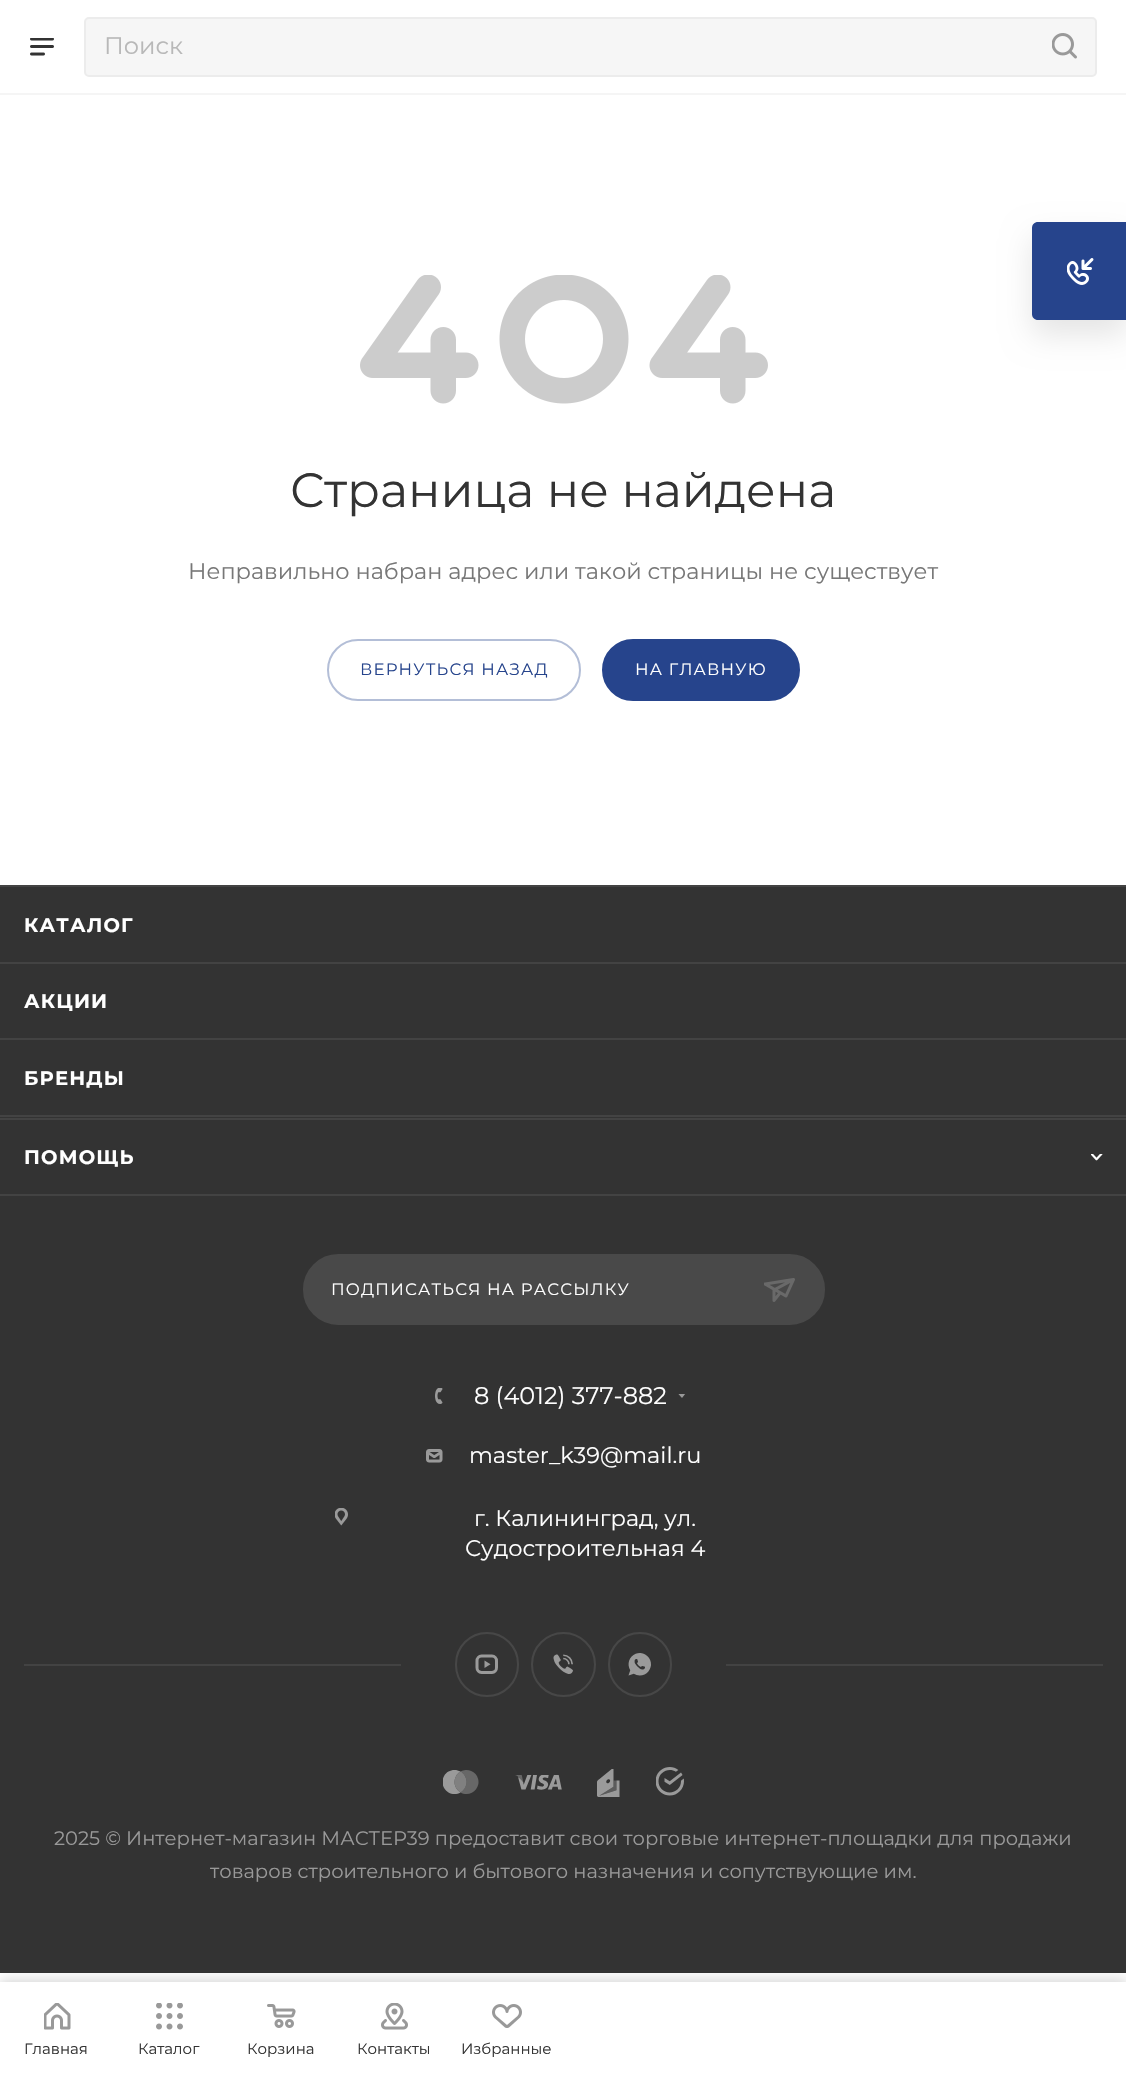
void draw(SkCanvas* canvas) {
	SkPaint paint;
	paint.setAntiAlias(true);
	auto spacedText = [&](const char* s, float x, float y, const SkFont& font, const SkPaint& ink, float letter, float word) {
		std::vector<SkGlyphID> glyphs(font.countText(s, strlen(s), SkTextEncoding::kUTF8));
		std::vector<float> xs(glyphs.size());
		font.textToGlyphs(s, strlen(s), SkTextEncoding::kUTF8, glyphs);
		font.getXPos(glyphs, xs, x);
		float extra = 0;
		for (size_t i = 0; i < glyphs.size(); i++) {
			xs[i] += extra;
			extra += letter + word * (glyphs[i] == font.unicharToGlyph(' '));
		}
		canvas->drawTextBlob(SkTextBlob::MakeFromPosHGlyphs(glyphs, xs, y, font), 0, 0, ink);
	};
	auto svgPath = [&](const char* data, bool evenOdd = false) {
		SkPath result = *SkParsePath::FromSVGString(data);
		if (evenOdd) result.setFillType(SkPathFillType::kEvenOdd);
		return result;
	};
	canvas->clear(0xffffffff);
	paint.setColor(0xfff5f5f5);
	canvas->drawRect(SkRect::MakeXYWH(0, 93, 1126, 2), paint);
	canvas->drawImageRect(SkImages::DeferredFromEncodedData(SkData::MakeFromFileName("img1.png")), SkRect::MakeXYWH(30, 38, 24, 18), SkSamplingOptions());
	paint.setColor(0xfff6f6f6);
	canvas->drawRoundRect(SkRect::MakeXYWH(85, 18, 1011, 58), 4, 4, paint);
	paint.setStroke(true);
	paint.setStrokeWidth(2);
	paint.setColor(0xffececec);
	canvas->drawRoundRect(SkRect::MakeXYWH(85, 18, 1011, 58), 4, 4, paint);
	SkFont f1(fontMgr->matchFamilyStyle("Montserrat", SkFontStyle::Normal()), 24);
	f1.setSubpixel(true);
	paint.setStroke(false);
	paint.setColor(0xffb8b8b8);
	canvas->drawString("Поиск", 104, 54, f1, paint);
	canvas->drawImageRect(SkImages::DeferredFromEncodedData(SkData::MakeFromFileName("img2.png")), SkRect::MakeXYWH(1052, 33, 25, 26), SkSamplingOptions());
	canvas->drawImageRect(SkImages::DeferredFromEncodedData(SkData::MakeFromFileName("img3.png")), SkRect::MakeXYWH(360, 275, 408, 129), SkSamplingOptions());
	SkFont f2(fontMgr->matchFamilyStyle("Montserrat", SkFontStyle::Normal()), 48);
	f2.setSubpixel(true);
	paint.setColor(0xff333333);
	canvas->drawString("Страница не найдена", 290, 507, f2, paint);
	SkFont f3(fontMgr->matchFamilyStyle("Montserrat", SkFontStyle::Normal()), 22.5);
	f3.setSubpixel(true);
	paint.setColor(0xff777777);
	canvas->drawString("Неправильно набран адрес или такой страницы не существует", 188, 579, f3, paint);
	paint.setStroke(true);
	paint.setColor(0xffb3bed7);
	canvas->drawRoundRect(SkRect::MakeXYWH(328, 640, 252, 60), 30, 30, paint);
	SkFont f4(fontMgr->matchFamilyStyle("Montserrat", SkFontStyle::Normal()), 16.5);
	f4.setSubpixel(true);
	paint.setStroke(false);
	paint.setColor(0xff26448c);
	spacedText("ВЕРНУТЬСЯ НАЗАД", 360, 675, f4, paint, 1.2, 0);
	canvas->drawRoundRect(SkRect::MakeXYWH(603, 640, 196, 60), 30, 30, paint);
	paint.setStroke(true);
	canvas->drawRoundRect(SkRect::MakeXYWH(603, 640, 196, 60), 30, 30, paint);
	paint.setStroke(false);
	paint.setColor(0xffffffff);
	spacedText("НА ГЛАВНУЮ", 635, 675, f4, paint, 1.2, 0);
	paint.setColor(0x1a000000);
	paint.setMaskFilter(SkMaskFilter::MakeBlur(kNormal_SkBlurStyle, 15));
	canvas->drawRoundRect(SkRect::MakeXYWH(1032, 237, 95, 98), 6, 6, paint);
	paint.setMaskFilter(nullptr);
	paint.setColor(0xff26448c);
	canvas->drawPath(svgPath("M1038 222H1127V320H1038C1034.5 320 1032 317.5 1032 314V228C1032 224.5 1034.5 222 1038 222Z"), paint);
	canvas->drawImageRect(SkImages::DeferredFromEncodedData(SkData::MakeFromFileName("img4.png")), SkRect::MakeXYWH(1067, 258, 27, 27), SkSamplingOptions());
	paint.setColor(0xff333333);
	canvas->drawRect(SkRect::MakeXYWH(0, 887, 1126, 1086), paint);
	paint.setColor(0xff434343);
	canvas->drawRect(SkRect::MakeXYWH(0, 885, 1126, 2), paint);
	canvas->drawRect(SkRect::MakeXYWH(0, 962, 1126, 2), paint);
	SkFont f5(fontMgr->matchFamilyStyle("Montserrat", SkFontStyle::Bold()), 19.5);
	f5.setSubpixel(true);
	paint.setColor(0xffffffff);
	spacedText("КАТАЛОГ", 24, 932, f5, paint, 1.2, 0);
	paint.setColor(0xff434343);
	canvas->drawRect(SkRect::MakeXYWH(0, 1038, 1126, 2), paint);
	paint.setColor(0xffffffff);
	spacedText("АКЦИИ", 24, 1008, f5, paint, 1.2, 0);
	paint.setColor(0xff434343);
	canvas->drawRect(SkRect::MakeXYWH(0, 1115, 1126, 2), paint);
	paint.setColor(0xffffffff);
	spacedText("БРЕНДЫ", 24, 1085, f5, paint, 1.2, 0);
	paint.setColor(0xff434343);
	canvas->drawRect(SkRect::MakeXYWH(0, 1118, 1126, 2), paint);
	canvas->drawRect(SkRect::MakeXYWH(0, 1194, 1126, 2), paint);
	paint.setColor(0xffffffff);
	spacedText("ПОМОЩЬ", 24, 1164, f5, paint, 1.2, 0);
	canvas->drawImageRect(SkImages::DeferredFromEncodedData(SkData::MakeFromFileName("img5.png")), SkRect::MakeXYWH(1091, 1154, 12, 7), SkSamplingOptions());
	paint.setColor(0xff494949);
	canvas->drawRoundRect(SkRect::MakeXYWH(304, 1255, 520, 69), 34.5, 34.5, paint);
	paint.setStroke(true);
	canvas->drawRoundRect(SkRect::MakeXYWH(304, 1255, 520, 69), 34.5, 34.5, paint);
	paint.setStroke(false);
	paint.setColor(0xffffffff);
	spacedText("ПОДПИСАТЬСЯ НА РАССЫЛКУ", 331, 1295, f4, paint, 1.2, 0);
	canvas->drawImageRect(SkImages::DeferredFromEncodedData(SkData::MakeFromFileName("img6.png")), SkRect::MakeXYWH(764, 1278, 31, 24), SkSamplingOptions());
	canvas->drawImageRect(SkImages::DeferredFromEncodedData(SkData::MakeFromFileName("img7.png")), SkRect::MakeXYWH(435, 1388, 8, 16), SkSamplingOptions());
	canvas->drawString("8 (4012) 377-882", 474, 1404, f1, paint);
	canvas->save();
	canvas->clipRect(SkRect::MakeXYWH(678, 1394, 8, 5));
	paint.setColor(0xff999999);
	canvas->drawPath(svgPath("M678 1393.5H685.5L682 1398Z", true), paint);
	canvas->restore();
	canvas->drawImageRect(SkImages::DeferredFromEncodedData(SkData::MakeFromFileName("img8.png")), SkRect::MakeXYWH(426, 1449, 17, 14), SkSamplingOptions());
	paint.setColor(0xffffffff);
	canvas->drawString("master_k39@mail.ru", 469, 1463, f3, paint);
	canvas->drawImageRect(SkImages::DeferredFromEncodedData(SkData::MakeFromFileName("img9.png")), SkRect::MakeXYWH(335, 1508, 13, 18), SkSamplingOptions());
	canvas->drawString("г. Калининград, ул.", 474, 1526, f3, paint);
	canvas->drawString("Судостроительная 4", 465, 1556, f3, paint);
	paint.setColor(0xff434343);
	canvas->drawRect(SkRect::MakeXYWH(24, 1664, 1079, 2), paint);
	paint.setColor(0xff333333);
	canvas->drawRect(SkRect::MakeXYWH(401, 1664, 325, 2), paint);
	canvas->drawImageRect(SkImages::DeferredFromEncodedData(SkData::MakeFromFileName("img10.png")), SkRect::MakeXYWH(475, 1654, 23, 20), SkSamplingOptions());
	paint.setStroke(true);
	paint.setColor(0xff474747);
	canvas->drawRoundRect(SkRect::MakeXYWH(456, 1633, 62, 63), 31, 31, paint);
	canvas->drawImageRect(SkImages::DeferredFromEncodedData(SkData::MakeFromFileName("img11.png")), SkRect::MakeXYWH(553, 1654, 20, 20), SkSamplingOptions());
	canvas->drawCircle(563.5, 1664.5, 31.5, paint);
	canvas->drawImageRect(SkImages::DeferredFromEncodedData(SkData::MakeFromFileName("img12.png")), SkRect::MakeXYWH(628, 1653, 23, 23), SkSamplingOptions());
	canvas->drawRoundRect(SkRect::MakeXYWH(609, 1633, 62, 63), 31, 31, paint);
	canvas->drawImageRect(SkImages::DeferredFromEncodedData(SkData::MakeFromFileName("img13.png")), SkRect::MakeXYWH(443, 1770, 36, 24), SkSamplingOptions());
	canvas->drawImageRect(SkImages::DeferredFromEncodedData(SkData::MakeFromFileName("img14.png")), SkRect::MakeXYWH(515, 1775, 47, 15), SkSamplingOptions());
	canvas->drawImageRect(SkImages::DeferredFromEncodedData(SkData::MakeFromFileName("img15.png")), SkRect::MakeXYWH(597, 1769, 23, 28), SkSamplingOptions());
	canvas->drawImageRect(SkImages::DeferredFromEncodedData(SkData::MakeFromFileName("img16.png")), SkRect::MakeXYWH(656, 1767, 28, 29), SkSamplingOptions());
	SkFont f6(fontMgr->matchFamilyStyle("Montserrat", SkFontStyle::Normal()), 19.5);
	f6.setSubpixel(true);
	paint.setStroke(false);
	paint.setColor(0xff999999);
	canvas->drawString("2025 © Интернет-магазин МАСТЕР39 предоставит свои торговые интернет-площадки для продажи", 54, 1845, f6, paint);
	canvas->drawString("товаров строительного и бытового назначения и сопутствующие им.", 210, 1878, f6, paint);
	canvas->save();
	canvas->clipRect(SkRect::MakeXYWH(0, 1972, 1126, 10));
	paint.setColor(0x26000000);
	paint.setMaskFilter(SkMaskFilter::MakeBlur(kNormal_SkBlurStyle, 6));
	canvas->drawRect(SkRect::MakeXYWH(0, 1979, 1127, 93), paint);
	paint.setMaskFilter(nullptr);
	canvas->restore();
	canvas->drawImageRect(SkImages::DeferredFromEncodedData(SkData::MakeFromFileName("img17.png")), SkRect::MakeXYWH(44, 2003, 27, 27), SkSamplingOptions());
	SkFont f7(fontMgr->matchFamilyStyle("Montserrat", SkFontStyle::Normal()), 15);
	f7.setSubpixel(true);
	paint.setColor(0xff333333);
	canvas->drawString("Главная", 24, 2054, f7, paint);
	canvas->drawImageRect(SkImages::DeferredFromEncodedData(SkData::MakeFromFileName("img18.png")), SkRect::MakeXYWH(156, 2003, 27, 27), SkSamplingOptions());
	canvas->drawString("Каталог", 138, 2054, f7, paint);
	canvas->drawImageRect(SkImages::DeferredFromEncodedData(SkData::MakeFromFileName("img19.png")), SkRect::MakeXYWH(267, 2004, 29, 24), SkSamplingOptions());
	canvas->drawString("Корзина", 247, 2054, f7, paint);
	canvas->drawImageRect(SkImages::DeferredFromEncodedData(SkData::MakeFromFileName("img20.png")), SkRect::MakeXYWH(381, 2003, 27, 27), SkSamplingOptions());
	canvas->drawString("Контакты", 357, 2054, f7, paint);
	canvas->drawImageRect(SkImages::DeferredFromEncodedData(SkData::MakeFromFileName("img21.png")), SkRect::MakeXYWH(492, 2004, 30, 24), SkSamplingOptions());
	canvas->drawString("Избранные", 461, 2054, f7, paint);
}
